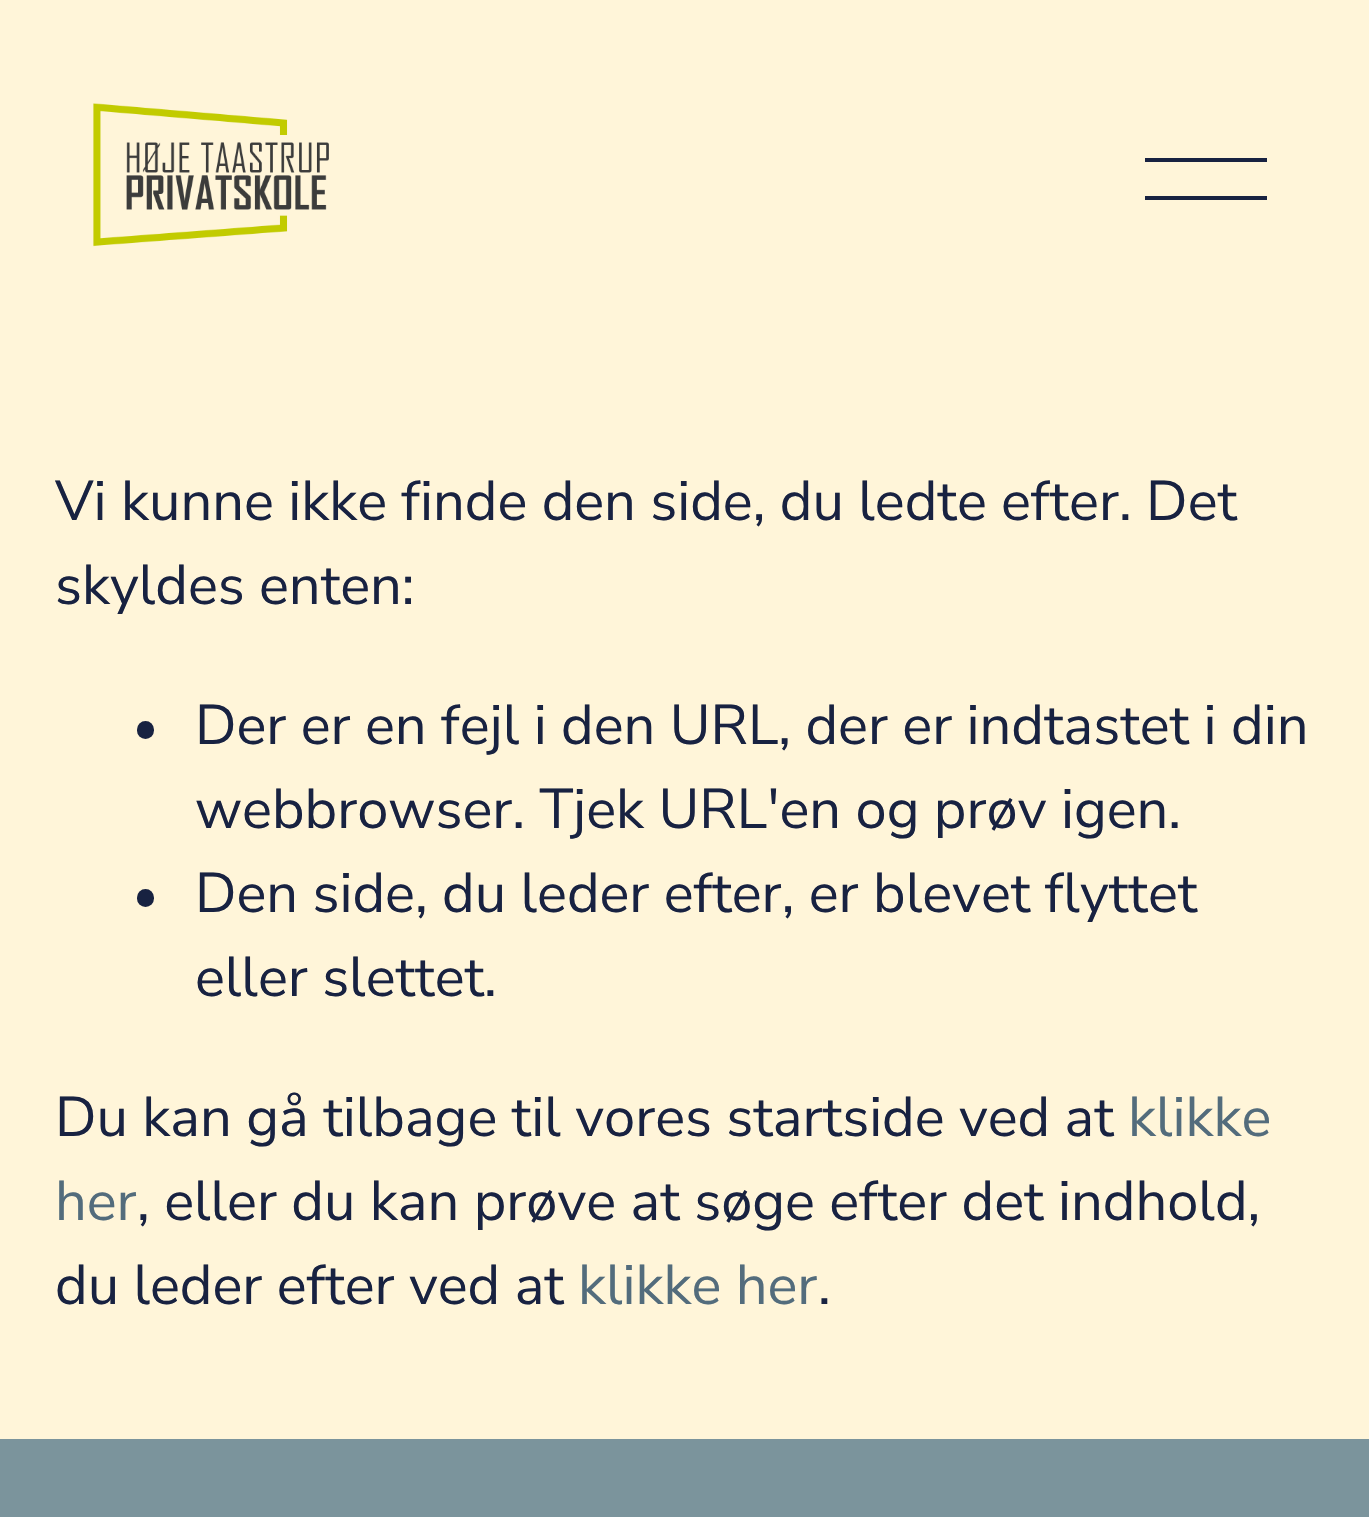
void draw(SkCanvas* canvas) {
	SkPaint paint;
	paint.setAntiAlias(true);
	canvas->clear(0xfffff5d9);
	canvas->drawImageRect(SkImages::DeferredFromEncodedData(SkData::MakeFromFileName("img1.png")), SkRect::MakeXYWH(93, 103, 236, 144), SkSamplingOptions());
	paint.setColor(0xff182241);
	canvas->drawRect(SkRect::MakeXYWH(1145, 158, 122, 4), paint);
	canvas->drawRect(SkRect::MakeXYWH(1145, 196, 122, 4), paint);
	SkFont f1(fontMgr->matchFamilyStyle("Nunito Sans", SkFontStyle::Normal()), 56);
	f1.setSubpixel(true);
	canvas->drawString("Vi kunne ikke finde den side, du ledte efter. Det", 55, 520, f1, paint);
	canvas->drawString("skyldes enten:", 55, 604, f1, paint);
	canvas->drawRoundRect(SkRect::MakeXYWH(137, 721, 17, 18), 8.5, 8.5, paint);
	canvas->drawString("Der er en fejl i den URL, der er indtastet i din", 195, 744, f1, paint);
	canvas->drawString("webbrowser. Tjek URL'en og prøv igen.", 195, 828, f1, paint);
	canvas->drawRoundRect(SkRect::MakeXYWH(137, 889, 17, 18), 8.5, 8.5, paint);
	canvas->drawString("Den side, du leder efter, er blevet flyttet", 195, 912, f1, paint);
	canvas->drawString("eller slettet.", 195, 996, f1, paint);
	canvas->drawString("Du kan gå tilbage til vores startside ved at", 55, 1136, f1, paint);
	paint.setColor(0xff536c7c);
	canvas->drawString("klikke", 1128, 1136, f1, paint);
	canvas->drawString("her", 55, 1220, f1, paint);
	paint.setColor(0xff182241);
	canvas->drawString(", eller du kan prøve at søge efter det indhold,", 137, 1220, f1, paint);
	canvas->drawString("du leder efter ved at", 55, 1304, f1, paint);
	paint.setColor(0xff536c7c);
	canvas->drawString("klikke her", 578, 1304, f1, paint);
	paint.setColor(0xff182241);
	canvas->drawString(".", 818, 1304, f1, paint);
	paint.setColor(0xff7b949c);
	canvas->drawRect(SkRect::MakeXYWH(0, 1439, 1369, 78), paint);
}
